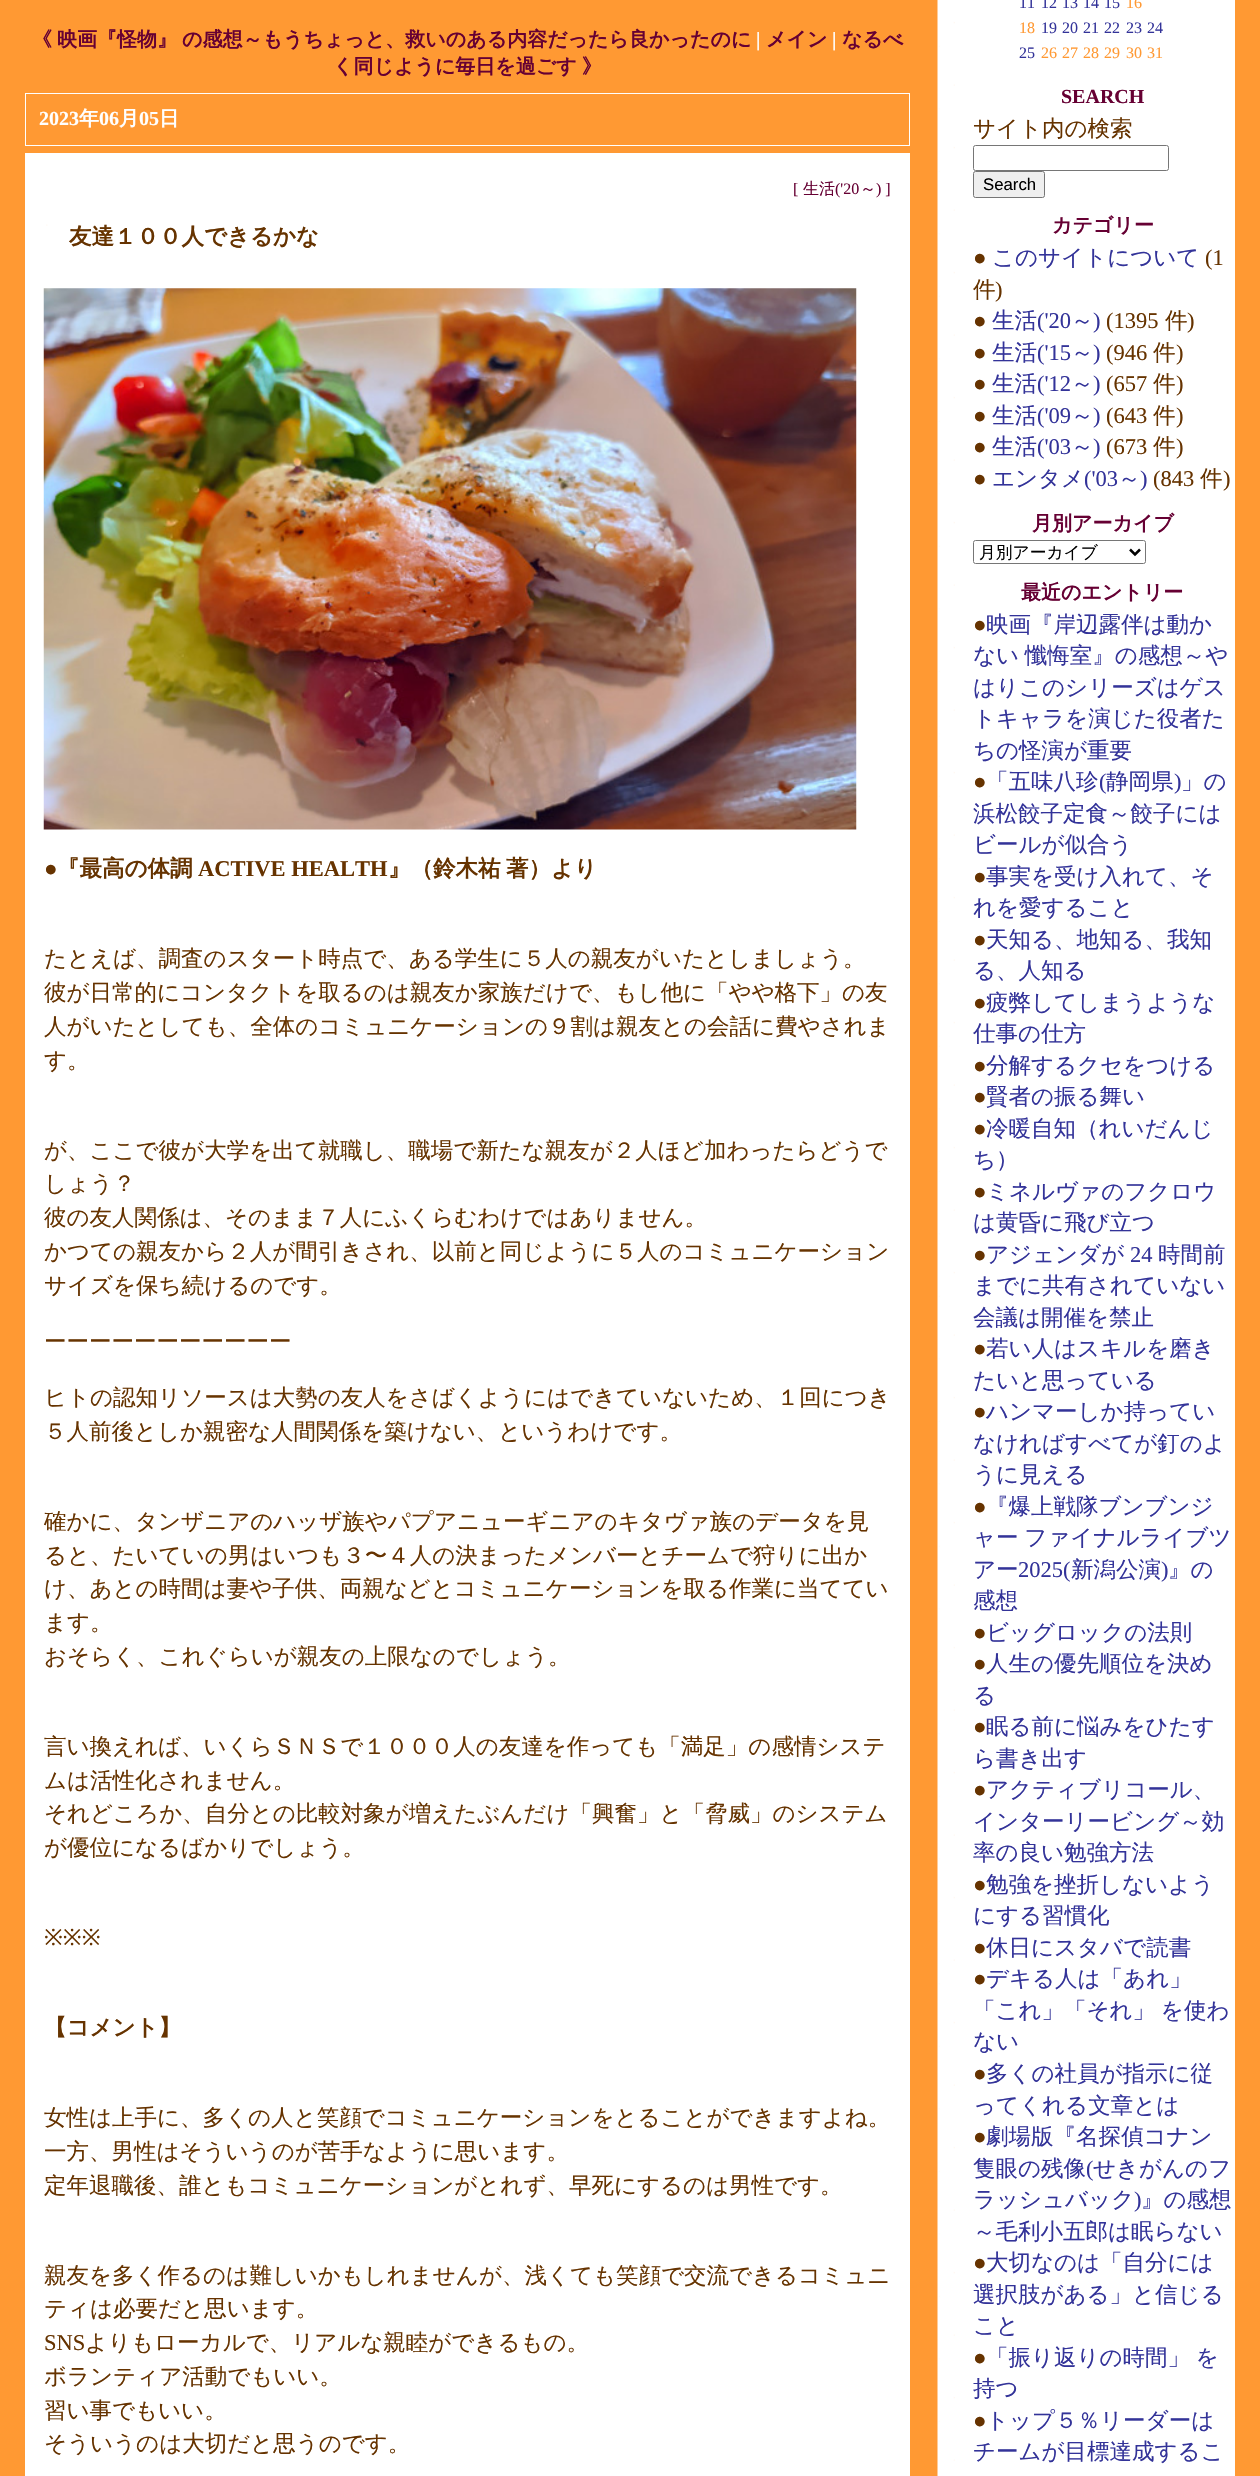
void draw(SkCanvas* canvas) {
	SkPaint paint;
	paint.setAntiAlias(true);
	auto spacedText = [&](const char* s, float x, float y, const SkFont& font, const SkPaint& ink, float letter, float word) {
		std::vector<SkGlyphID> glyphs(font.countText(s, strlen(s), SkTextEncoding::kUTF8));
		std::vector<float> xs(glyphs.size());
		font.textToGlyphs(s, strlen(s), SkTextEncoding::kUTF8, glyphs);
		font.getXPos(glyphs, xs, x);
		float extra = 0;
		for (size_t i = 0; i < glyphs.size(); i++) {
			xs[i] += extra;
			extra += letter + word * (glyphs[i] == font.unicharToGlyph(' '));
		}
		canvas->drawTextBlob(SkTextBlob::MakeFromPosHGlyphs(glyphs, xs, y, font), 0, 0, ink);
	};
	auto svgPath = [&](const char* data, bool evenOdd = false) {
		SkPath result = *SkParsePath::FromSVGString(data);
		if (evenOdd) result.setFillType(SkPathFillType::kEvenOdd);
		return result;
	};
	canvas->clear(0xffff9933);
	SkFont f1(fontMgr->matchFamilyStyle("WenQuanYi Zen Hei", SkFontStyle::Bold()), 20);
	f1.setSubpixel(true);
	paint.setColor(0xff660033);
	spacedText("《 映画『怪物』 の感想～もうちょっと、救いのある内容だったら良かったのに", 32, 46, f1, paint, 0, -1);
	SkFont f2(fontMgr->matchFamilyStyle("Liberation Serif", SkFontStyle::Bold()), 20);
	f2.setSubpixel(true);
	paint.setColor(0xffffffff);
	canvas->drawString("|", 756, 46, f2, paint);
	paint.setColor(0xff660033);
	canvas->drawString("メイン", 766, 46, f1, paint);
	paint.setColor(0xffffffff);
	canvas->drawString("|", 832, 46, f2, paint);
	paint.setColor(0xff660033);
	canvas->drawString("なるべ", 842, 46, f1, paint);
	spacedText("く同じように毎日を過ごす 》", 333, 73, f1, paint, 0, -1);
	paint.setStroke(true);
	paint.setStrokeWidth(1);
	paint.setColor(0xffffffff);
	canvas->drawRect(SkRect::MakeXYWH(25.5, 93.5, 884, 52), paint);
	paint.setStroke(false);
	canvas->drawString("2023", 39, 125, f2, paint);
	canvas->drawString("年", 79, 125, f1, paint);
	canvas->drawString("06", 99, 125, f2, paint);
	canvas->drawString("月", 119, 125, f1, paint);
	canvas->drawString("05", 139, 125, f2, paint);
	canvas->drawString("日", 159, 125, f1, paint);
	canvas->drawRect(SkRect::MakeXYWH(25, 153, 885, 2323), paint);
	SkFont f3(fontMgr->matchFamilyStyle("Liberation Serif", SkFontStyle::Normal()), 16);
	f3.setSubpixel(true);
	paint.setColor(0xff660033);
	canvas->drawString("[", 793, 194, f3, paint);
	SkFont f4(fontMgr->matchFamilyStyle("WenQuanYi Zen Hei", SkFontStyle(500, SkFontStyle::kNormal_Width, SkFontStyle::kUpright_Slant)), 16);
	f4.setSubpixel(true);
	canvas->drawString("生活", 803, 194, f4, paint);
	canvas->drawString("('20", 835, 194, f3, paint);
	canvas->drawString("～", 860, 194, f4, paint);
	canvas->drawString(") ]", 876, 194, f3, paint);
	canvas->drawImageRect(SkImages::DeferredFromEncodedData(SkData::MakeFromFileName("img1.png")), SkRect::MakeXYWH(46, 224, 2, 2), SkSamplingOptions());
	SkFont f5(fontMgr->matchFamilyStyle("WenQuanYi Zen Hei", SkFontStyle::Bold()), 22.5);
	f5.setSubpixel(true);
	paint.setColor(0xff663300);
	canvas->drawString("友達１００人できるかな", 69, 244, f5, paint);
	canvas->drawImageRect(SkImages::DeferredFromEncodedData(SkData::MakeFromFileName("img2.png")), SkRect::MakeXYWH(43, 288, 814, 542), SkSamplingOptions());
	SkFont f6(fontMgr->matchFamilyStyle("Liberation Serif", SkFontStyle::Bold()), 22.5);
	f6.setSubpixel(true);
	canvas->drawString("●", 44, 876, f6, paint);
	canvas->drawString("『最高の体調", 57, 876, f5, paint);
	canvas->drawString("ACTIVE HEALTH", 198, 876, f6, paint);
	canvas->drawString("』（鈴木祐", 388, 876, f5, paint);
	canvas->drawString("著）より", 506, 876, f5, paint);
	SkFont f7(fontMgr->matchFamilyStyle("WenQuanYi Zen Hei", SkFontStyle(500, SkFontStyle::kNormal_Width, SkFontStyle::kUpright_Slant)), 22.5);
	f7.setSubpixel(true);
	canvas->drawString("たとえば、調査のスタート時点で、ある学生に５人の親友がいたとしましょう。", 44, 966, f7, paint);
	canvas->drawString("彼が日常的にコンタクトを取るのは親友か家族だけで、もし他に「やや格下」の友", 44, 1000, f7, paint);
	canvas->drawString("人がいたとしても、全体のコミュニケーションの９割は親友との会話に費やされま", 44, 1034, f7, paint);
	canvas->drawString("す。", 44, 1068, f7, paint);
	canvas->drawString("が、ここで彼が大学を出て就職し、職場で新たな親友が２人ほど加わったらどうで", 44, 1158, f7, paint);
	canvas->drawString("しょう？", 44, 1191, f7, paint);
	canvas->drawString("彼の友人関係は、そのまま７人にふくらむわけではありません。", 44, 1225, f7, paint);
	canvas->drawString("かつての親友から２人が間引きされ、以前と同じように５人のコミュニケーション", 44, 1259, f7, paint);
	canvas->drawString("サイズを保ち続けるのです。", 44, 1293, f7, paint);
	canvas->drawString("ーーーーーーーーーーー", 44, 1349, f7, paint);
	canvas->drawString("ヒトの認知リソースは大勢の友人をさばくようにはできていないため、１回につき", 44, 1405, f7, paint);
	canvas->drawString("５人前後としか親密な人間関係を築けない、というわけです。", 44, 1439, f7, paint);
	canvas->drawString("確かに、タンザニアのハッザ族やパプアニューギニアのキタヴァ族のデータを見", 44, 1529, f7, paint);
	canvas->drawString("ると、たいていの男はいつも３〜４人の決まったメンバーとチームで狩りに出か", 44, 1563, f7, paint);
	canvas->drawString("け、あとの時間は妻や子供、両親などとコミュニケーションを取る作業に当ててい", 44, 1596, f7, paint);
	canvas->drawString("ます。", 44, 1630, f7, paint);
	canvas->drawString("おそらく、これぐらいが親友の上限なのでしょう。", 44, 1664, f7, paint);
	canvas->drawString("言い換えれば、いくらＳＮＳで１０００人の友達を作っても「満足」の感情システ", 44, 1754, f7, paint);
	canvas->drawString("ムは活性化されません。", 44, 1788, f7, paint);
	canvas->drawString("それどころか、自分との比較対象が増えたぶんだけ「興奮」と「脅威」のシステム", 44, 1821, f7, paint);
	canvas->drawString("が優位になるばかりでしょう。", 44, 1855, f7, paint);
	SkFont f8(fontMgr->matchFamilyStyle("Noto Sans", SkFontStyle::Normal()), 22.5);
	f8.setSubpixel(true);
	canvas->drawString("※※※", 44, 1945, f8, paint);
	canvas->drawString("【コメント】", 44, 2035, f5, paint);
	canvas->drawString("女性は上手に、多くの人と笑顔でコミュニケーションをとることができますよね。", 44, 2125, f7, paint);
	canvas->drawString("一方、男性はそういうのが苦手なように思います。", 44, 2159, f7, paint);
	canvas->drawString("定年退職後、誰ともコミュニケーションがとれず、早死にするのは男性です。", 44, 2193, f7, paint);
	canvas->drawString("親友を多く作るのは難しいかもしれませんが、浅くても笑顔で交流できるコミュニ", 44, 2283, f7, paint);
	canvas->drawString("ティは必要だと思います。", 44, 2316, f7, paint);
	SkFont f9(fontMgr->matchFamilyStyle("Liberation Serif", SkFontStyle::Normal()), 22.5);
	f9.setSubpixel(true);
	canvas->drawString("SNS", 44, 2350, f9, paint);
	canvas->drawString("よりもローカルで、リアルな親睦ができるもの。", 85, 2350, f7, paint);
	canvas->drawString("ボランティア活動でもいい。", 44, 2384, f7, paint);
	canvas->drawString("習い事でもいい。", 44, 2418, f7, paint);
	canvas->drawString("そういうのは大切だと思うのです。", 44, 2451, f7, paint);
	paint.setColor(0xffffffff);
	canvas->drawRect(SkRect::MakeXYWH(937, 0, 298, 2476), paint);
	canvas->drawImageRect(SkImages::DeferredFromEncodedData(SkData::MakeFromFileName("img3.png")), SkRect::MakeXYWH(923, 0, 32, 2476), SkSamplingOptions());
	paint.setColor(0xff333399);
	canvas->drawString("11", 1019, 8, f3, paint);
	canvas->drawString("12", 1041, 8, f3, paint);
	canvas->drawString("13", 1062, 8, f3, paint);
	canvas->drawString("14", 1083, 8, f3, paint);
	canvas->drawString("15", 1104, 8, f3, paint);
	paint.setColor(0xffff9933);
	canvas->drawString("16", 1126, 8, f3, paint);
	canvas->drawString("18", 1019, 33, f3, paint);
	paint.setColor(0xff333399);
	canvas->drawString("19", 1041, 33, f3, paint);
	canvas->drawString("20", 1062, 33, f3, paint);
	canvas->drawString("21", 1083, 33, f3, paint);
	canvas->drawString("22", 1104, 33, f3, paint);
	canvas->drawString("23", 1126, 33, f3, paint);
	canvas->drawString("24", 1147, 33, f3, paint);
	canvas->drawString("25", 1019, 58, f3, paint);
	paint.setColor(0xffff9933);
	canvas->drawString("26", 1041, 58, f3, paint);
	canvas->drawString("27", 1062, 58, f3, paint);
	canvas->drawString("28", 1083, 58, f3, paint);
	canvas->drawString("29", 1104, 58, f3, paint);
	canvas->drawString("30", 1126, 58, f3, paint);
	canvas->drawString("31", 1147, 58, f3, paint);
	paint.setColor(0xff660033);
	canvas->drawString("SEARCH", 1061, 103, f2, paint);
	paint.setColor(0xff663300);
	canvas->drawString("サイト内の検索", 973, 136, f7, paint);
	paint.setStroke(true);
	paint.setColor(0xff767676);
	canvas->drawRoundRect(SkRect::MakeXYWH(973.5, 145.5, 195, 25), 2, 2, paint);
	paint.setStroke(false);
	paint.setColor(0xffefefef);
	canvas->drawRoundRect(SkRect::MakeXYWH(973.5, 171.5, 71, 26), 2, 2, paint);
	paint.setStroke(true);
	paint.setColor(0xff767676);
	canvas->drawRoundRect(SkRect::MakeXYWH(973.5, 171.5, 71, 26), 2, 2, paint);
	SkFont f10(fontMgr->matchFamilyStyle("Liberation Sans", SkFontStyle::Normal()), 16.75);
	f10.setSubpixel(true);
	paint.setStroke(false);
	paint.setColor(0xff000000);
	canvas->drawString("Search", 983, 190, f10, paint);
	paint.setColor(0xff660033);
	canvas->drawString("カテゴリー", 1052, 232, f1, paint);
	paint.setColor(0xff663300);
	canvas->drawString("●", 973, 265, f9, paint);
	paint.setColor(0xff333399);
	canvas->drawString("このサイトについて", 992, 265, f7, paint);
	paint.setColor(0xff663300);
	canvas->drawString("(1", 1205, 265, f9, paint);
	canvas->drawString("件", 973, 297, f7, paint);
	canvas->drawString(")", 995, 297, f9, paint);
	canvas->drawString("●", 973, 328, f9, paint);
	paint.setColor(0xff333399);
	canvas->drawString("生活", 992, 328, f7, paint);
	canvas->drawString("('20", 1037, 328, f9, paint);
	canvas->drawString("～", 1071, 328, f7, paint);
	canvas->drawString(")", 1093, 328, f9, paint);
	paint.setColor(0xff663300);
	canvas->drawString("(1395", 1106, 328, f9, paint);
	canvas->drawString("件", 1165, 328, f7, paint);
	canvas->drawString(")", 1187, 328, f9, paint);
	canvas->drawString("●", 973, 360, f9, paint);
	paint.setColor(0xff333399);
	canvas->drawString("生活", 992, 360, f7, paint);
	canvas->drawString("('15", 1037, 360, f9, paint);
	canvas->drawString("～", 1071, 360, f7, paint);
	canvas->drawString(")", 1093, 360, f9, paint);
	paint.setColor(0xff663300);
	canvas->drawString("(946", 1106, 360, f9, paint);
	canvas->drawString("件", 1153, 360, f7, paint);
	canvas->drawString(")", 1176, 360, f9, paint);
	canvas->drawString("●", 973, 391, f9, paint);
	paint.setColor(0xff333399);
	canvas->drawString("生活", 992, 391, f7, paint);
	canvas->drawString("('12", 1037, 391, f9, paint);
	canvas->drawString("～", 1071, 391, f7, paint);
	canvas->drawString(")", 1093, 391, f9, paint);
	paint.setColor(0xff663300);
	canvas->drawString("(657", 1106, 391, f9, paint);
	canvas->drawString("件", 1153, 391, f7, paint);
	canvas->drawString(")", 1176, 391, f9, paint);
	canvas->drawString("●", 973, 423, f9, paint);
	paint.setColor(0xff333399);
	canvas->drawString("生活", 992, 423, f7, paint);
	canvas->drawString("('09", 1037, 423, f9, paint);
	canvas->drawString("～", 1071, 423, f7, paint);
	canvas->drawString(")", 1093, 423, f9, paint);
	paint.setColor(0xff663300);
	canvas->drawString("(643", 1106, 423, f9, paint);
	canvas->drawString("件", 1153, 423, f7, paint);
	canvas->drawString(")", 1176, 423, f9, paint);
	canvas->drawString("●", 973, 454, f9, paint);
	paint.setColor(0xff333399);
	canvas->drawString("生活", 992, 454, f7, paint);
	canvas->drawString("('03", 1037, 454, f9, paint);
	canvas->drawString("～", 1071, 454, f7, paint);
	canvas->drawString(")", 1093, 454, f9, paint);
	paint.setColor(0xff663300);
	canvas->drawString("(673", 1106, 454, f9, paint);
	canvas->drawString("件", 1153, 454, f7, paint);
	canvas->drawString(")", 1176, 454, f9, paint);
	canvas->drawString("●", 973, 486, f9, paint);
	paint.setColor(0xff333399);
	canvas->drawString("エンタメ", 992, 486, f7, paint);
	canvas->drawString("('03", 1084, 486, f9, paint);
	canvas->drawString("～", 1118, 486, f7, paint);
	canvas->drawString(")", 1140, 486, f9, paint);
	paint.setColor(0xff663300);
	canvas->drawString("(843", 1153, 486, f9, paint);
	canvas->drawString("件", 1200, 486, f7, paint);
	canvas->drawString(")", 1223, 486, f9, paint);
	paint.setColor(0xff660033);
	canvas->drawString("月別アーカイブ", 1032, 530, f1, paint);
	paint.setStroke(true);
	paint.setColor(0xff767676);
	canvas->drawRoundRect(SkRect::MakeXYWH(973.5, 540.5, 172, 23), 2, 2, paint);
	paint.setStrokeWidth(2.5);
	paint.setColor(0xff000000);
	canvas->drawPath(svgPath("M1130 549.5L1135 554.5L1140 549.5"), paint);
	SkFont f11(fontMgr->matchFamilyStyle("WenQuanYi Zen Hei", SkFontStyle(500, SkFontStyle::kNormal_Width, SkFontStyle::kUpright_Slant)), 16.75);
	f11.setSubpixel(true);
	paint.setStroke(false);
	canvas->drawString("月別アーカイブ", 979, 558, f11, paint);
	paint.setColor(0xff660033);
	canvas->drawString("最近のエントリー", 1021, 599, f1, paint);
	paint.setColor(0xff663300);
	canvas->drawString("●", 973, 632, f9, paint);
	paint.setColor(0xff333399);
	canvas->drawString("映画『岸辺露伴は動か", 986, 632, f7, paint);
	spacedText("ない 懺悔室』の感想～や", 973, 663, f7, paint, 0, -1);
	canvas->drawString("はりこのシリーズはゲス", 973, 695, f7, paint);
	canvas->drawString("トキャラを演じた役者た", 973, 726, f7, paint);
	canvas->drawString("ちの怪演が重要", 973, 758, f7, paint);
	paint.setColor(0xff663300);
	canvas->drawString("●", 973, 789, f9, paint);
	paint.setColor(0xff333399);
	canvas->drawString("「五味八珍", 986, 789, f7, paint);
	canvas->drawString("(", 1099, 789, f9, paint);
	canvas->drawString("静岡県", 1106, 789, f7, paint);
	canvas->drawString(")", 1174, 789, f9, paint);
	canvas->drawString("」の", 1181, 789, f7, paint);
	canvas->drawString("浜松餃子定食～餃子には", 973, 821, f7, paint);
	canvas->drawString("ビールが似合う", 973, 852, f7, paint);
	paint.setColor(0xff663300);
	canvas->drawString("●", 973, 884, f9, paint);
	paint.setColor(0xff333399);
	canvas->drawString("事実を受け入れて、そ", 986, 884, f7, paint);
	canvas->drawString("れを愛すること", 973, 915, f7, paint);
	paint.setColor(0xff663300);
	canvas->drawString("●", 973, 947, f9, paint);
	paint.setColor(0xff333399);
	canvas->drawString("天知る、地知る、我知", 986, 947, f7, paint);
	canvas->drawString("る、人知る", 973, 978, f7, paint);
	paint.setColor(0xff663300);
	canvas->drawString("●", 973, 1010, f9, paint);
	paint.setColor(0xff333399);
	canvas->drawString("疲弊してしまうような", 986, 1010, f7, paint);
	canvas->drawString("仕事の仕方", 973, 1041, f7, paint);
	paint.setColor(0xff663300);
	canvas->drawString("●", 973, 1073, f9, paint);
	paint.setColor(0xff333399);
	canvas->drawString("分解するクセをつける", 986, 1073, f7, paint);
	paint.setColor(0xff663300);
	canvas->drawString("●", 973, 1104, f9, paint);
	paint.setColor(0xff333399);
	canvas->drawString("賢者の振る舞い", 986, 1104, f7, paint);
	paint.setColor(0xff663300);
	canvas->drawString("●", 973, 1136, f9, paint);
	paint.setColor(0xff333399);
	canvas->drawString("冷暖自知（れいだんじ", 986, 1136, f7, paint);
	canvas->drawString("ち）", 973, 1167, f7, paint);
	paint.setColor(0xff663300);
	canvas->drawString("●", 973, 1199, f9, paint);
	paint.setColor(0xff333399);
	canvas->drawString("ミネルヴァのフクロウ", 986, 1199, f7, paint);
	canvas->drawString("は黄昏に飛び立つ", 973, 1230, f7, paint);
	paint.setColor(0xff663300);
	canvas->drawString("●", 973, 1262, f9, paint);
	paint.setColor(0xff333399);
	canvas->drawString("アジェンダが", 986, 1262, f7, paint);
	canvas->drawString("24", 1130, 1262, f9, paint);
	canvas->drawString("時間前", 1158, 1262, f7, paint);
	canvas->drawString("までに共有されていない", 973, 1293, f7, paint);
	canvas->drawString("会議は開催を禁止", 973, 1325, f7, paint);
	paint.setColor(0xff663300);
	canvas->drawString("●", 973, 1356, f9, paint);
	paint.setColor(0xff333399);
	canvas->drawString("若い人はスキルを磨き", 986, 1356, f7, paint);
	canvas->drawString("たいと思っている", 973, 1388, f7, paint);
	paint.setColor(0xff663300);
	canvas->drawString("●", 973, 1419, f9, paint);
	paint.setColor(0xff333399);
	canvas->drawString("ハンマーしか持ってい", 986, 1419, f7, paint);
	canvas->drawString("なければすべてが釘のよ", 973, 1451, f7, paint);
	canvas->drawString("うに見える", 973, 1482, f7, paint);
	paint.setColor(0xff663300);
	canvas->drawString("●", 973, 1514, f9, paint);
	paint.setColor(0xff333399);
	canvas->drawString("『爆上戦隊ブンブンジ", 986, 1514, f7, paint);
	spacedText("ャー ファイナルライブツ", 973, 1545, f7, paint, 0, -1);
	canvas->drawString("アー", 973, 1577, f7, paint);
	canvas->drawString("2025(", 1018, 1577, f9, paint);
	canvas->drawString("新潟公演", 1071, 1577, f7, paint);
	canvas->drawString(")", 1161, 1577, f9, paint);
	canvas->drawString("』の", 1168, 1577, f7, paint);
	canvas->drawString("感想", 973, 1608, f7, paint);
	paint.setColor(0xff663300);
	canvas->drawString("●", 973, 1640, f9, paint);
	paint.setColor(0xff333399);
	canvas->drawString("ビッグロックの法則", 986, 1640, f7, paint);
	paint.setColor(0xff663300);
	canvas->drawString("●", 973, 1671, f9, paint);
	paint.setColor(0xff333399);
	canvas->drawString("人生の優先順位を決め", 986, 1671, f7, paint);
	canvas->drawString("る", 973, 1703, f7, paint);
	paint.setColor(0xff663300);
	canvas->drawString("●", 973, 1734, f9, paint);
	paint.setColor(0xff333399);
	canvas->drawString("眠る前に悩みをひたす", 986, 1734, f7, paint);
	canvas->drawString("ら書き出す", 973, 1766, f7, paint);
	paint.setColor(0xff663300);
	canvas->drawString("●", 973, 1797, f9, paint);
	paint.setColor(0xff333399);
	canvas->drawString("アクティブリコール、", 986, 1797, f7, paint);
	canvas->drawString("インターリービング～効", 973, 1829, f7, paint);
	canvas->drawString("率の良い勉強方法", 973, 1860, f7, paint);
	paint.setColor(0xff663300);
	canvas->drawString("●", 973, 1892, f9, paint);
	paint.setColor(0xff333399);
	canvas->drawString("勉強を挫折しないよう", 986, 1892, f7, paint);
	canvas->drawString("にする習慣化", 973, 1923, f7, paint);
	paint.setColor(0xff663300);
	canvas->drawString("●", 973, 1955, f9, paint);
	paint.setColor(0xff333399);
	canvas->drawString("休日にスタバで読書", 986, 1955, f7, paint);
	paint.setColor(0xff663300);
	canvas->drawString("●", 973, 1986, f9, paint);
	paint.setColor(0xff333399);
	canvas->drawString("デキる人は「あれ」", 986, 1986, f7, paint);
	spacedText("「これ」「それ」 を使わ", 973, 2018, f7, paint, 0, -1);
	canvas->drawString("ない", 973, 2049, f7, paint);
	paint.setColor(0xff663300);
	canvas->drawString("●", 973, 2081, f9, paint);
	paint.setColor(0xff333399);
	canvas->drawString("多くの社員が指示に従", 986, 2081, f7, paint);
	canvas->drawString("ってくれる文章とは", 973, 2113, f7, paint);
	paint.setColor(0xff663300);
	canvas->drawString("●", 973, 2144, f9, paint);
	paint.setColor(0xff333399);
	canvas->drawString("劇場版『名探偵コナン", 986, 2144, f7, paint);
	canvas->drawString("隻眼の残像", 973, 2176, f7, paint);
	canvas->drawString("(", 1086, 2176, f9, paint);
	canvas->drawString("せきがんのフ", 1093, 2176, f7, paint);
	canvas->drawString("ラッシュバック", 973, 2207, f7, paint);
	canvas->drawString(")", 1134, 2207, f9, paint);
	canvas->drawString("』の感想", 1141, 2207, f7, paint);
	canvas->drawString("～毛利小五郎は眠らない", 973, 2239, f7, paint);
	paint.setColor(0xff663300);
	canvas->drawString("●", 973, 2270, f9, paint);
	paint.setColor(0xff333399);
	canvas->drawString("大切なのは「自分には", 986, 2270, f7, paint);
	canvas->drawString("選択肢がある」と信じる", 973, 2302, f7, paint);
	canvas->drawString("こと", 973, 2333, f7, paint);
	paint.setColor(0xff663300);
	canvas->drawString("●", 973, 2365, f9, paint);
	paint.setColor(0xff333399);
	spacedText("「振り返りの時間」 を", 986, 2365, f7, paint, 0, -1);
	canvas->drawString("持つ", 973, 2396, f7, paint);
	paint.setColor(0xff663300);
	canvas->drawString("●", 973, 2428, f9, paint);
	paint.setColor(0xff333399);
	canvas->drawString("トップ５％リーダーは", 986, 2428, f7, paint);
	canvas->drawString("チームが目標達成するこ", 973, 2459, f7, paint);
}
